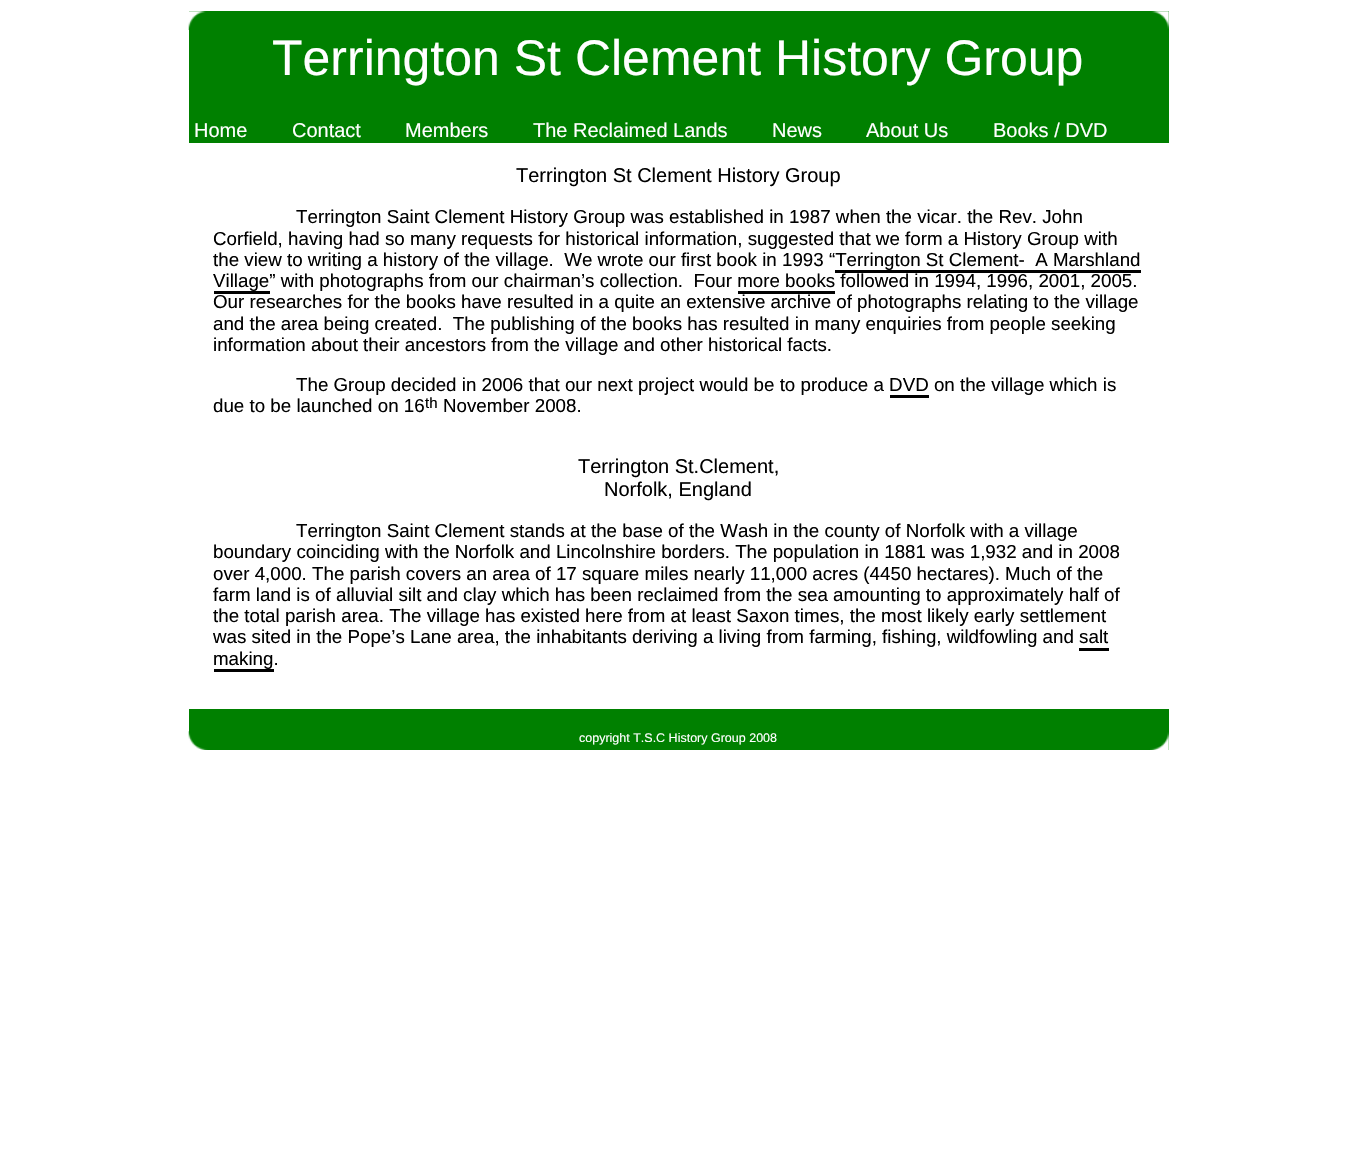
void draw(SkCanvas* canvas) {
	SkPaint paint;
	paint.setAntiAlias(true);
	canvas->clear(0xffffffff);
	paint.setColor(0xff008000);
	canvas->drawRect(SkRect::MakeXYWH(189, 11, 980, 132), paint);
	canvas->drawImageRect(SkImages::DeferredFromEncodedData(SkData::MakeFromFileName("img1.png")), SkRect::MakeXYWH(188, 11, 18, 19), SkSamplingOptions());
	canvas->drawImageRect(SkImages::DeferredFromEncodedData(SkData::MakeFromFileName("img2.png")), SkRect::MakeXYWH(1151, 11, 18, 18), SkSamplingOptions());
	SkFont f1(fontMgr->matchFamilyStyle("Liberation Sans", SkFontStyle::Normal()), 50);
	f1.setSubpixel(true);
	paint.setColor(0xffffffff);
	canvas->drawString("Terrington St Clement History Group", 272, 75, f1, paint);
	SkFont f2(fontMgr->matchFamilyStyle("Liberation Sans", SkFontStyle::Normal()), 20);
	f2.setSubpixel(true);
	canvas->drawString("Home", 194, 137, f2, paint);
	canvas->drawString("Contact", 292, 137, f2, paint);
	canvas->drawString("Members", 405, 137, f2, paint);
	canvas->drawString("The Reclaimed Lands", 533, 137, f2, paint);
	canvas->drawString("News", 772, 137, f2, paint);
	canvas->drawString("About Us", 866, 137, f2, paint);
	canvas->drawString("Books / DVD", 993, 137, f2, paint);
	paint.setColor(0xff000000);
	canvas->drawString("Terrington St Clement History Group", 516, 182, f2, paint);
	SkFont f3(fontMgr->matchFamilyStyle("Liberation Sans", SkFontStyle::Normal()), 18.75);
	f3.setSubpixel(true);
	canvas->drawString("Terrington Saint Clement History Group was established in 1987 when the vicar. the Rev. John", 296, 223, f3, paint);
	canvas->drawString("Corfield, having had so many requests for historical information, suggested that we form a History Group with", 213, 245, f3, paint);
	canvas->drawString("the view to writing a history of the village.  We wrote our first book in 1993 “Terrington St Clement-  A Marshland", 213, 266, f3, paint);
	canvas->drawString("Village” with photographs from our chairman’s collection.  Four more books followed in 1994, 1996, 2001, 2005.", 213, 287, f3, paint);
	canvas->drawRect(SkRect::MakeXYWH(835, 270, 306, 3), paint);
	canvas->drawRect(SkRect::MakeXYWH(214, 291, 56, 3), paint);
	canvas->drawRect(SkRect::MakeXYWH(738, 291, 97, 3), paint);
	canvas->drawString("Our researches for the books have resulted in a quite an extensive archive of photographs relating to the village", 213, 308, f3, paint);
	canvas->drawString("and the area being created.  The publishing of the books has resulted in many enquiries from people seeking", 213, 330, f3, paint);
	canvas->drawString("information about their ancestors from the village and other historical facts.", 213, 351, f3, paint);
	canvas->drawString("The Group decided in 2006 that our next project would be to produce a DVD on the village which is", 296, 391, f3, paint);
	canvas->drawRect(SkRect::MakeXYWH(890, 395, 39, 3), paint);
	canvas->drawString("due to be launched on 16", 213, 412, f3, paint);
	SkFont f4(fontMgr->matchFamilyStyle("Liberation Sans", SkFontStyle::Normal()), 15);
	f4.setSubpixel(true);
	canvas->drawString("th", 425, 408, f4, paint);
	canvas->drawString("November 2008.", 443, 412, f3, paint);
	canvas->drawString("Terrington St.Clement,", 578, 473, f2, paint);
	canvas->drawString("Norfolk, England", 604, 496, f2, paint);
	canvas->drawString("Terrington Saint Clement stands at the base of the Wash in the county of Norfolk with a village", 296, 537, f3, paint);
	canvas->drawString("boundary coinciding with the Norfolk and Lincolnshire borders. The population in 1881 was 1,932 and in 2008", 213, 558, f3, paint);
	canvas->drawString("over 4,000. The parish covers an area of 17 square miles nearly 11,000 acres (4450 hectares). Much of the", 213, 580, f3, paint);
	canvas->drawString("farm land is of alluvial silt and clay which has been reclaimed from the sea amounting to approximately half of", 213, 601, f3, paint);
	canvas->drawString("the total parish area. The village has existed here from at least Saxon times, the most likely early settlement", 213, 622, f3, paint);
	canvas->drawString("was sited in the Pope’s Lane area, the inhabitants deriving a living from farming, fishing, wildfowling and salt", 213, 643, f3, paint);
	canvas->drawString("making.", 213, 665, f3, paint);
	canvas->drawRect(SkRect::MakeXYWH(1079, 648, 30, 3), paint);
	canvas->drawRect(SkRect::MakeXYWH(214, 669, 60, 3), paint);
	paint.setColor(0xff008000);
	canvas->drawRect(SkRect::MakeXYWH(189, 709, 980, 41), paint);
	canvas->drawImageRect(SkImages::DeferredFromEncodedData(SkData::MakeFromFileName("img3.png")), SkRect::MakeXYWH(188, 731, 20, 19), SkSamplingOptions());
	SkFont f5(fontMgr->matchFamilyStyle("Liberation Sans", SkFontStyle::Normal()), 12.5);
	f5.setSubpixel(true);
	paint.setColor(0xffffffff);
	canvas->drawString("copyright T.S.C History Group 2008", 579, 742, f5, paint);
	canvas->drawImageRect(SkImages::DeferredFromEncodedData(SkData::MakeFromFileName("img4.png")), SkRect::MakeXYWH(1150, 732, 19, 18), SkSamplingOptions());
}
